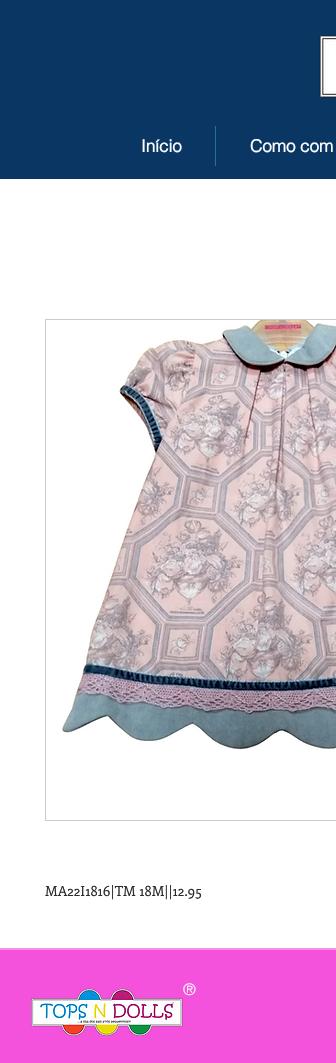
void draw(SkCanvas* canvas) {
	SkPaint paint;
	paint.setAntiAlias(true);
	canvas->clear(0xffffffff);
	paint.setColor(0xff0a3663);
	canvas->drawRect(SkRect::MakeXYWH(0, 0, 336, 179), paint);
	canvas->drawImageRect(SkImages::DeferredFromEncodedData(SkData::MakeFromFileName("img1.png")), SkRect::MakeXYWH(319, 35, 17, 63), SkSamplingOptions());
	SkFont f1(fontMgr->matchFamilyStyle("helvetica", SkFontStyle::Bold()), 17);
	f1.setSubpixel(true);
	paint.setColor(0xffffffff);
	canvas->drawString("Início", 141, 152, f1, paint);
	paint.setColor(0xff2b6ca3);
	canvas->drawRect(SkRect::MakeXYWH(215, 126, 1, 40), paint);
	paint.setColor(0xffffffff);
	canvas->drawString("Como com", 250, 152, f1, paint);
	paint.setStroke(true);
	paint.setStrokeWidth(1);
	paint.setColor(0xffcccccc);
	canvas->drawRect(SkRect::MakeXYWH(45.5, 319.5, 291, 501), paint);
	canvas->drawImageRect(SkImages::DeferredFromEncodedData(SkData::MakeFromFileName("img2.png")), SkRect::MakeXYWH(62, 320, 274, 430), SkSamplingOptions());
	SkFont f2(fontMgr->matchFamilyStyle("Enriqueta", SkFontStyle::Normal()), 14);
	f2.setSubpixel(true);
	paint.setStroke(false);
	paint.setColor(0xff2a2a2a);
	canvas->drawString("MA22I1816|TM 18M||12.95", 45, 896, f2, paint);
	paint.setColor(0xfff88fe9);
	canvas->drawRect(SkRect::MakeXYWH(0, 948, 336, 2), paint);
	paint.setColor(0xfff452dc);
	canvas->drawRect(SkRect::MakeXYWH(0, 950, 336, 113), paint);
	canvas->drawImageRect(SkImages::DeferredFromEncodedData(SkData::MakeFromFileName("img3.png")), SkRect::MakeXYWH(31, 988, 152, 48), SkSamplingOptions());
	SkFont f3(fontMgr->matchFamilyStyle("helvetica", SkFontStyle(300, SkFontStyle::kNormal_Width, SkFontStyle::kUpright_Slant)), 16);
	f3.setSubpixel(true);
	paint.setColor(0xffffffff);
	canvas->drawString("®", 183, 995, f3, paint);
}
